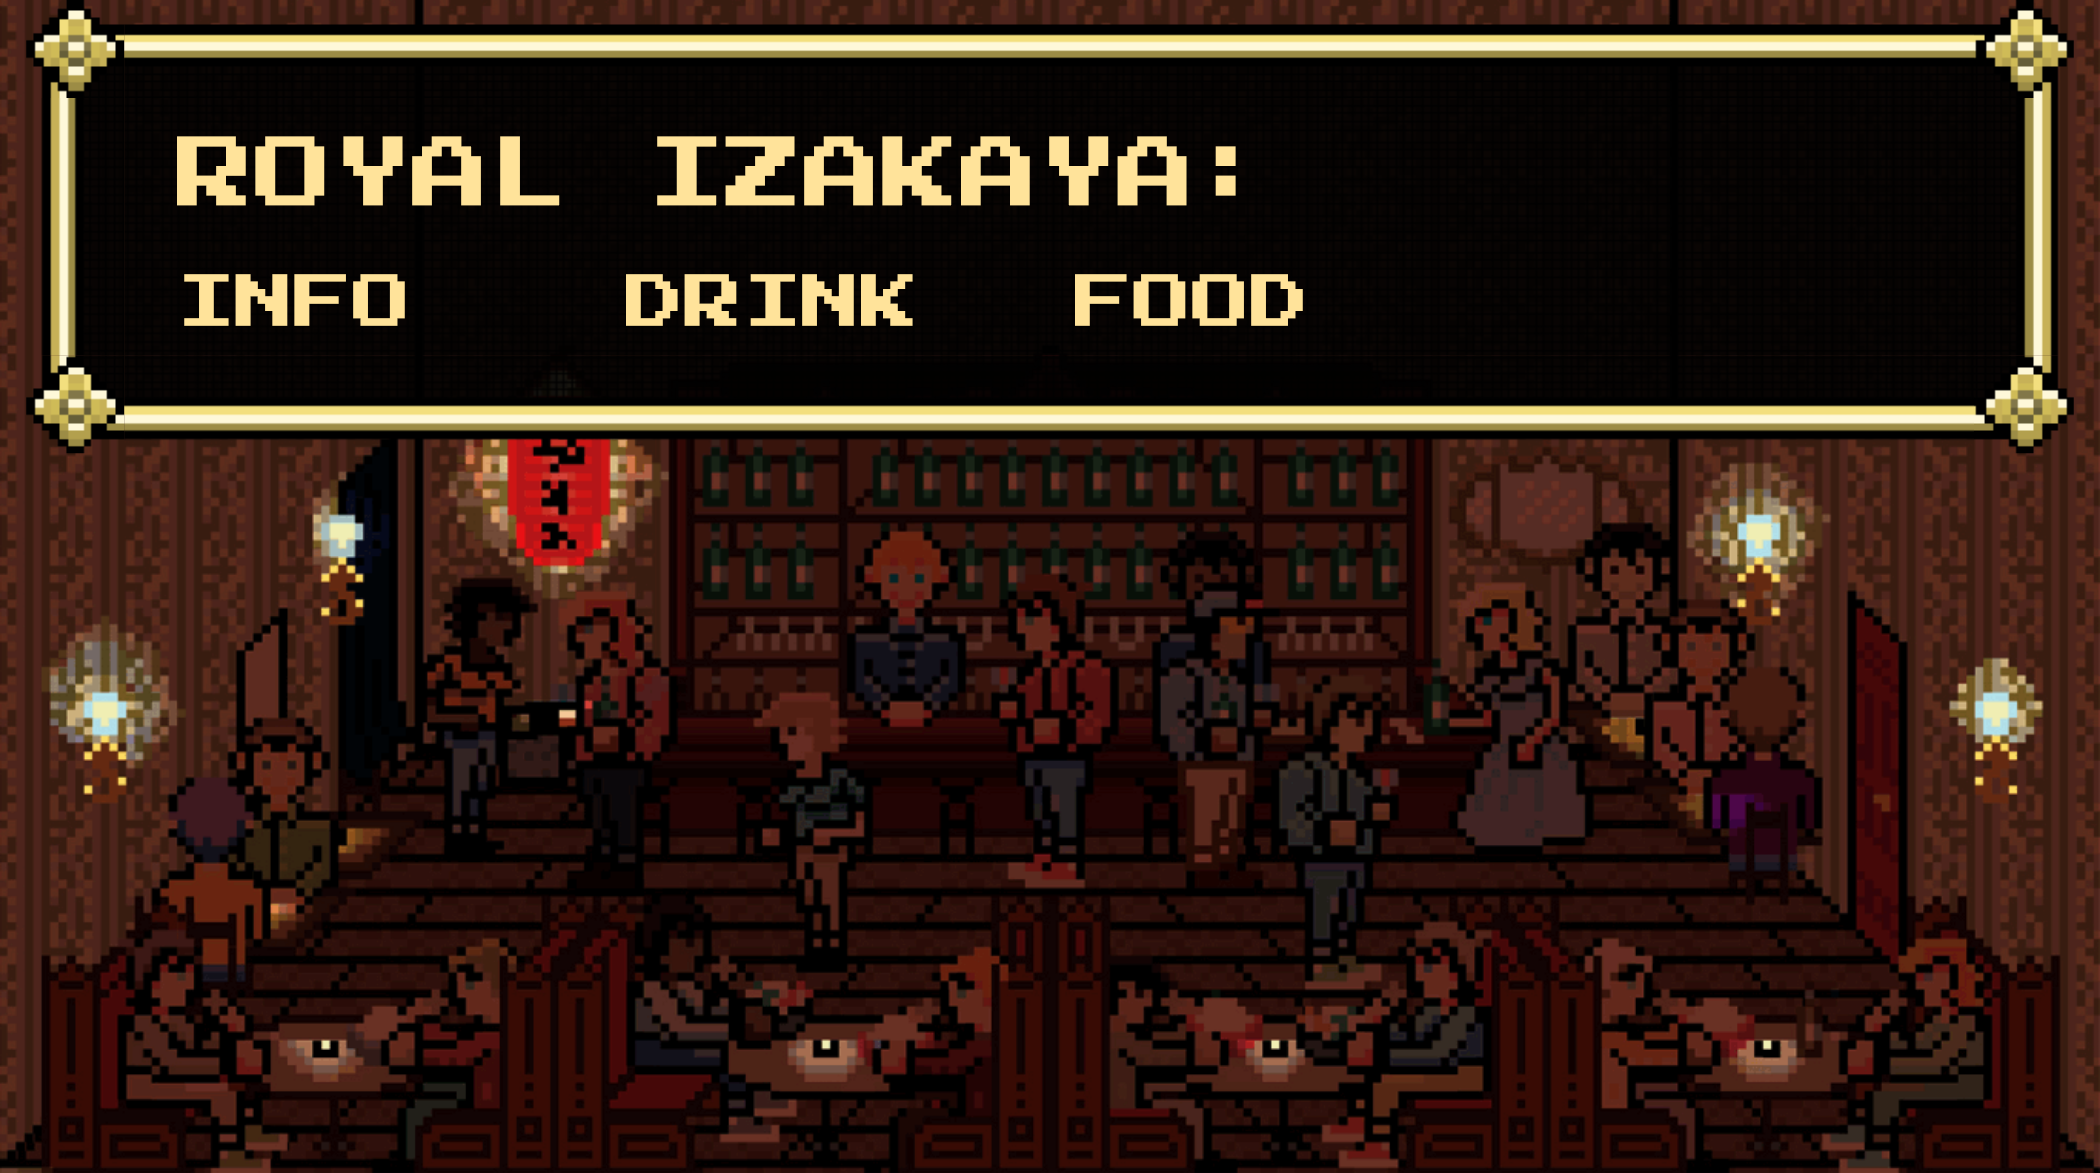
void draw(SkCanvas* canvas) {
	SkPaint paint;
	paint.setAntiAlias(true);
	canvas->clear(0xffffffff);
	canvas->drawImageRect(SkImages::DeferredFromEncodedData(SkData::MakeFromFileName("img1.png")), SkRect::MakeXYWH(0, 0, 2100, 1173), SkSamplingOptions());
	canvas->drawImageRect(SkImages::DeferredFromEncodedData(SkData::MakeFromFileName("img2.png")), SkRect::MakeXYWH(26, 0, 2048, 454), SkSamplingOptions());
	SkFont f1(fontMgr->matchFamilyStyle("Press Start 2P", SkFontStyle::Normal()), 78.4);
	f1.setSubpixel(true);
	paint.setColor(0xffffe39a);
	canvas->drawString("ROYAL IZAKAYA:", 177, 215, f1, paint);
	SkFont f2(fontMgr->matchFamilyStyle("Press Start 2P", SkFontStyle::Normal()), 58.75);
	f2.setSubpixel(true);
	canvas->drawString("INFO", 177, 333, f2, paint);
	canvas->drawString("DRINK", 626, 333, f2, paint);
	canvas->drawString("FOOD", 1075, 333, f2, paint);
}
